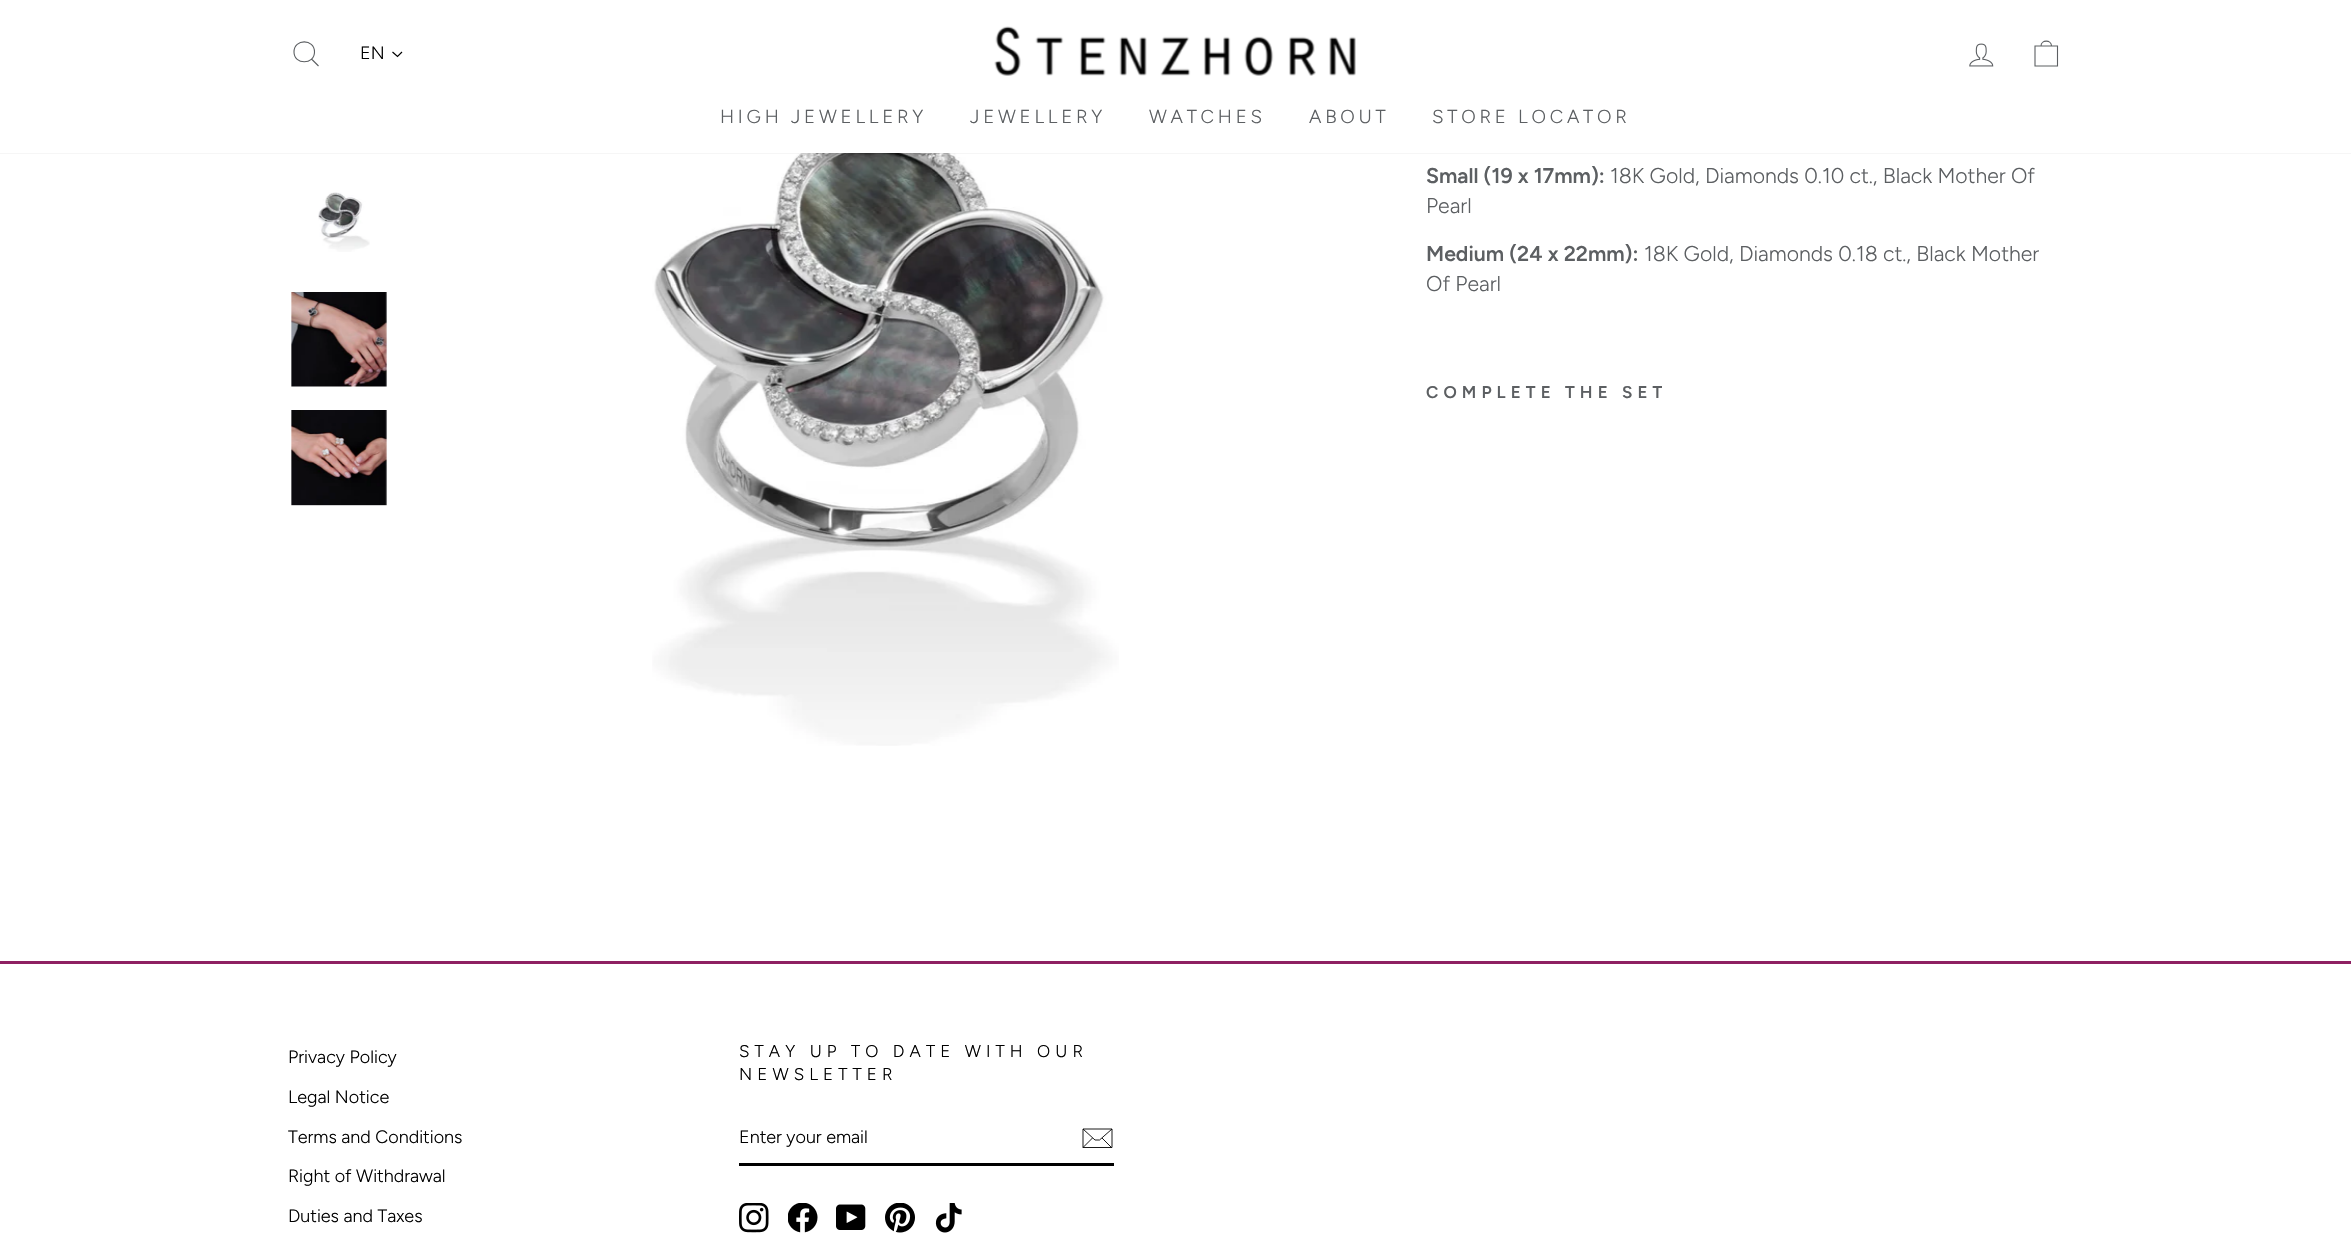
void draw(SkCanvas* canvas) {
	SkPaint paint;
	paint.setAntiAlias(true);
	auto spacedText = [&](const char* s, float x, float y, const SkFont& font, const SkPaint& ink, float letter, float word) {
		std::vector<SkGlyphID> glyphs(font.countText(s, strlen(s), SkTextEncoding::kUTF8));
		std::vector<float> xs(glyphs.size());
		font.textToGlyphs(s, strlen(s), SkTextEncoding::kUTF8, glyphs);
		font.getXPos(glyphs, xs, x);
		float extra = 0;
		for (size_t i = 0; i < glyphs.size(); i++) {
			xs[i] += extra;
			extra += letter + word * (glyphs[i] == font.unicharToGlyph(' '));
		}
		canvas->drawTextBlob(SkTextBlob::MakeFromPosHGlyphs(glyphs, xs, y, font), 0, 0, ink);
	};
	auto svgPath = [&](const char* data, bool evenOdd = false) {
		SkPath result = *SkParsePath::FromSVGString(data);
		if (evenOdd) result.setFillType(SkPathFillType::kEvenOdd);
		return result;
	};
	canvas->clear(0xffffffff);
	canvas->drawImageRect(SkImages::DeferredFromEncodedData(SkData::MakeFromFileName("img6.png")), SkRect::MakeXYWH(652, 153, 467, 593), SkSamplingOptions());
	paint.setColor(0x33000000);
	paint.setMaskFilter(SkMaskFilter::MakeBlur(kNormal_SkBlurStyle, 0.5));
	canvas->drawRect(SkRect::MakeXYWH(0, 0, 2351, 153), paint);
	paint.setMaskFilter(nullptr);
	paint.setColor(0xffffffff);
	canvas->drawRect(SkRect::MakeXYWH(0, 0, 2351, 153), paint);
	paint.setStroke(true);
	paint.setStrokeWidth(1.1);
	paint.setColor(0xff5c5f62);
	canvas->drawPath(svgPath("M314.5 52C314.5 65 294 65 294 52C294 38.5 314.5 38.5 314.5 52ZM318.5 66L311.5 59"), paint);
	SkFont f1(fontMgr->matchFamilyStyle("Figtree", SkFontStyle(300, SkFontStyle::kNormal_Width, SkFontStyle::kUpright_Slant)), 18);
	f1.setSubpixel(true);
	paint.setStroke(false);
	paint.setColor(0xff000000);
	canvas->drawString("EN", 360, 59, f1, paint);
	paint.setStroke(true);
	paint.setStrokeWidth(1.2);
	canvas->drawPath(svgPath("M392.5 52L397.5 56.5L402 52"), paint);
	canvas->drawImageRect(SkImages::DeferredFromEncodedData(SkData::MakeFromFileName("img1.png")), SkRect::MakeXYWH(994, 26, 362, 50), SkSamplingOptions());
	canvas->drawImageRect(SkImages::DeferredFromEncodedData(SkData::MakeFromFileName("img2.png")), SkRect::MakeXYWH(1969, 43, 25, 24), SkSamplingOptions());
	paint.setStrokeWidth(1.1);
	paint.setColor(0xff5c5f62);
	canvas->drawPath(svgPath("M2035 46H2057.5V66H2035ZM2041 46C2041 39.5 2051.5 39.5 2051.5 46"), paint);
	SkFont f2(fontMgr->matchFamilyStyle("Figtree", SkFontStyle(300, SkFontStyle::kNormal_Width, SkFontStyle::kUpright_Slant)), 18.75);
	f2.setSubpixel(true);
	paint.setStroke(false);
	spacedText("HIGH JEWELLERY", 720, 123, f2, paint, 3.75, 0);
	spacedText("JEWELLERY", 970, 123, f2, paint, 3.75, 0);
	spacedText("WATCHES", 1149, 123, f2, paint, 3.75, 0);
	spacedText("ABOUT", 1309, 123, f2, paint, 3.75, 0);
	spacedText("STORE LOCATOR", 1432, 123, f2, paint, 3.75, 0);
	canvas->drawImageRect(SkImages::DeferredFromEncodedData(SkData::MakeFromFileName("img3.png")), SkRect::MakeXYWH(318, 192, 52, 60), SkSamplingOptions());
	canvas->drawImageRect(SkImages::DeferredFromEncodedData(SkData::MakeFromFileName("img4.png")), SkRect::MakeXYWH(291, 292, 96, 95), SkSamplingOptions());
	canvas->drawImageRect(SkImages::DeferredFromEncodedData(SkData::MakeFromFileName("img5.png")), SkRect::MakeXYWH(291, 410, 96, 96), SkSamplingOptions());
	SkFont f3(fontMgr->matchFamilyStyle("Figtree", SkFontStyle(600, SkFontStyle::kNormal_Width, SkFontStyle::kUpright_Slant)), 21.25);
	f3.setSubpixel(true);
	canvas->drawString("Small (19 x 17mm):", 1426, 183, f3, paint);
	SkFont f4(fontMgr->matchFamilyStyle("Figtree", SkFontStyle(300, SkFontStyle::kNormal_Width, SkFontStyle::kUpright_Slant)), 21.25);
	f4.setSubpixel(true);
	canvas->drawString("18K Gold, Diamonds 0.10 ct., Black Mother Of", 1610, 183, f4, paint);
	canvas->drawString("Pearl", 1426, 213, f4, paint);
	canvas->drawString("Medium (24 x 22mm):", 1426, 261, f3, paint);
	canvas->drawString("18K Gold, Diamonds 0.18 ct., Black Mother", 1644, 261, f4, paint);
	canvas->drawString("Of Pearl", 1426, 291, f4, paint);
	SkFont f5(fontMgr->matchFamilyStyle("Figtree", SkFontStyle(600, SkFontStyle::kNormal_Width, SkFontStyle::kUpright_Slant)), 17);
	f5.setSubpixel(true);
	spacedText("COMPLETE THE SET", 1426, 398, f5, paint, 5.1, 0);
	paint.setColor(0xff8e2062);
	canvas->drawRect(SkRect::MakeXYWH(0, 961, 2351, 3), paint);
	paint.setColor(0xff000000);
	canvas->drawString("Privacy Policy", 288, 1063, f1, paint);
	canvas->drawString("Legal Notice", 288, 1103, f1, paint);
	canvas->drawString("Terms and Conditions", 288, 1143, f1, paint);
	canvas->drawString("Right of Withdrawal", 288, 1182, f1, paint);
	canvas->drawString("Duties and Taxes", 288, 1222, f1, paint);
	SkFont f6(fontMgr->matchFamilyStyle("Figtree", SkFontStyle(300, SkFontStyle::kNormal_Width, SkFontStyle::kUpright_Slant)), 17);
	f6.setSubpixel(true);
	spacedText("STAY UP TO DATE WITH OUR", 739, 1057, f6, paint, 5.1, 0);
	spacedText("NEWSLETTER", 739, 1080, f6, paint, 5.1, 0);
	canvas->drawRect(SkRect::MakeXYWH(739, 1163, 375, 3), paint);
	canvas->drawString("Enter your email", 739, 1143, f1, paint);
	paint.setStroke(true);
	paint.setStrokeWidth(0.9);
	canvas->drawPath(svgPath("M1112 1147.5H1083V1129H1112ZM1083 1129L1095 1140H1099.5L1112 1129M1092.5 1138L1083 1147.5M1111.5 1147.5L1102 1138"), paint);
	canvas->drawImageRect(SkImages::DeferredFromEncodedData(SkData::MakeFromFileName("img7.png")), SkRect::MakeXYWH(739, 1203, 30, 30), SkSamplingOptions());
	canvas->drawImageRect(SkImages::DeferredFromEncodedData(SkData::MakeFromFileName("img8.png")), SkRect::MakeXYWH(788, 1203, 30, 30), SkSamplingOptions());
	canvas->drawImageRect(SkImages::DeferredFromEncodedData(SkData::MakeFromFileName("img9.png")), SkRect::MakeXYWH(836, 1204, 30, 26), SkSamplingOptions());
	canvas->drawImageRect(SkImages::DeferredFromEncodedData(SkData::MakeFromFileName("img10.png")), SkRect::MakeXYWH(885, 1203, 30, 30), SkSamplingOptions());
	canvas->drawImageRect(SkImages::DeferredFromEncodedData(SkData::MakeFromFileName("img11.png")), SkRect::MakeXYWH(935, 1203, 27, 30), SkSamplingOptions());
}
